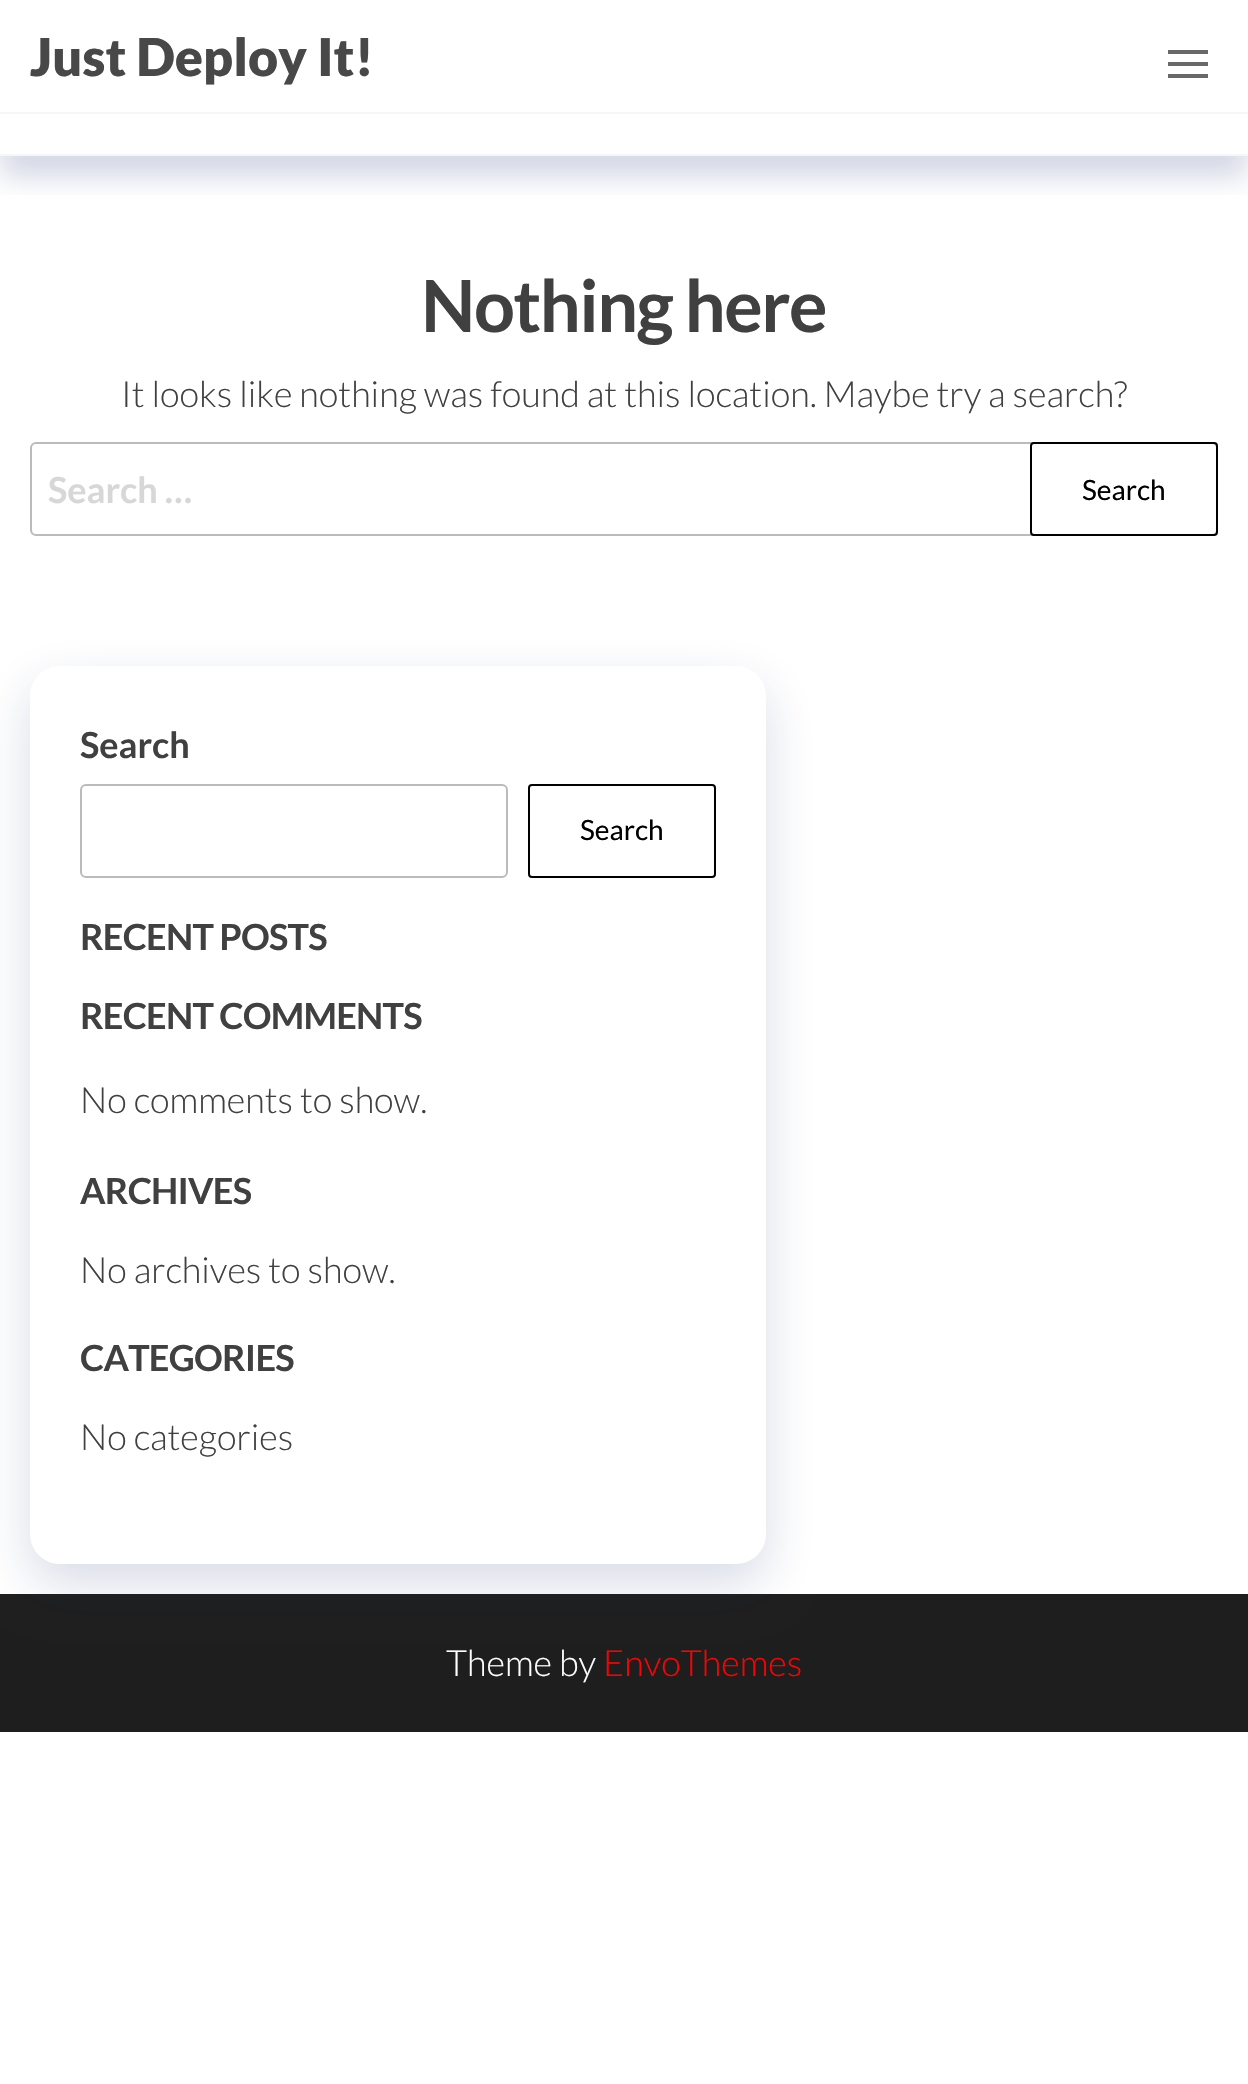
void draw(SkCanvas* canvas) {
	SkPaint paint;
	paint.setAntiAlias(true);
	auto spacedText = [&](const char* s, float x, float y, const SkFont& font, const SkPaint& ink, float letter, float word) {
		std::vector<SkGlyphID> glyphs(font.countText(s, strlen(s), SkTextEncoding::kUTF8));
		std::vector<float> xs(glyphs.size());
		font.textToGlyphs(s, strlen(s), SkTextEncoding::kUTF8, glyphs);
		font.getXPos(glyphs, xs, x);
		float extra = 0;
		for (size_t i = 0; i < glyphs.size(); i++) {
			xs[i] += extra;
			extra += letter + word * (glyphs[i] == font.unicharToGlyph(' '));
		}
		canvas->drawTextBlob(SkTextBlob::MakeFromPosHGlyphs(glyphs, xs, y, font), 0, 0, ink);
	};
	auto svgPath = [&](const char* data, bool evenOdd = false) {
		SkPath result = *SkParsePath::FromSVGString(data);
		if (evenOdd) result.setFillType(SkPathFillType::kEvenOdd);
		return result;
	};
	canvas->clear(0xffffffff);
	paint.setColor(0xfff6f6f6);
	canvas->drawRect(SkRect::MakeXYWH(0, 112, 1248, 2), paint);
	SkFont f1(fontMgr->matchFamilyStyle("Lato", SkFontStyle(900, SkFontStyle::kNormal_Width, SkFontStyle::kUpright_Slant)), 52);
	f1.setSubpixel(true);
	paint.setColor(0xff484848);
	canvas->drawString("Just Deploy It!", 30, 76, f1, paint);
	paint.setColor(0xff696969);
	canvas->drawRect(SkRect::MakeXYWH(1168, 62, 40, 4), paint);
	canvas->drawRect(SkRect::MakeXYWH(1168, 50, 40, 4), paint);
	canvas->drawRect(SkRect::MakeXYWH(1168, 74, 40, 4), paint);
	canvas->save();
	canvas->clipRect(SkRect::MakeXYWH(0, 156, 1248, 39));
	paint.setColor(0x33192d78);
	paint.setMaskFilter(SkMaskFilter::MakeBlur(kNormal_SkBlurStyle, 15));
	canvas->drawRect(SkRect::MakeXYWH(0, 134, 1248, 42), paint);
	paint.setMaskFilter(nullptr);
	canvas->restore();
	paint.setColor(0xfff6f6f6);
	canvas->drawRect(SkRect::MakeXYWH(0, 154, 1248, 2), paint);
	SkFont f2(fontMgr->matchFamilyStyle("Lato", SkFontStyle::Bold()), 72);
	f2.setSubpixel(true);
	paint.setColor(0xff404040);
	spacedText("Nothing here", 421, 332, f2, paint, -1.5, 0);
	SkFont f3(fontMgr->matchFamilyStyle("Lato", SkFontStyle(300, SkFontStyle::kNormal_Width, SkFontStyle::kUpright_Slant)), 36);
	f3.setSubpixel(true);
	canvas->drawString("It looks like nothing was found at this location. Maybe try a search?", 121, 407, f3, paint);
	paint.setStroke(true);
	paint.setStrokeWidth(2);
	paint.setColor(0xffbbbbbb);
	canvas->drawRoundRect(SkRect::MakeXYWH(31, 443, 1186, 92), 5, 5, paint);
	SkFont f4(fontMgr->matchFamilyStyle("Lato", SkFontStyle::Bold()), 36);
	f4.setSubpixel(true);
	paint.setStroke(false);
	paint.setColor(0xffd7d7d7);
	canvas->drawString("Search …", 48, 503, f4, paint);
	paint.setStroke(true);
	paint.setColor(0xff000000);
	canvas->drawRoundRect(SkRect::MakeXYWH(1031, 443, 186, 92), 3, 3, paint);
	SkFont f5(fontMgr->matchFamilyStyle("Lato", SkFontStyle::Normal()), 28);
	f5.setSubpixel(true);
	paint.setStroke(false);
	canvas->drawString("Search", 1082, 500, f5, paint);
	paint.setColor(0xff1e1e1e);
	canvas->drawRect(SkRect::MakeXYWH(0, 1594, 1248, 138), paint);
	canvas->save();
	canvas->clipPath(svgPath("M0 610H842V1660H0ZM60 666H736C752.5 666 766 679.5 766 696V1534C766 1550.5 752.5 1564 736 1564H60C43.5 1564 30 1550.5 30 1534V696C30 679.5 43.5 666 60 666Z", true), true);
	paint.setColor(0x2b1c2d71);
	paint.setMaskFilter(SkMaskFilter::MakeBlur(kNormal_SkBlurStyle, 25));
	canvas->drawRoundRect(SkRect::MakeXYWH(30, 686, 736, 898), 30, 30, paint);
	paint.setMaskFilter(nullptr);
	canvas->restore();
	paint.setColor(0xff404040);
	canvas->drawString("Search", 80, 758, f4, paint);
	paint.setStroke(true);
	paint.setColor(0xffbbbbbb);
	canvas->drawRoundRect(SkRect::MakeXYWH(81, 785, 426, 92), 5, 5, paint);
	paint.setColor(0xff000000);
	canvas->drawRoundRect(SkRect::MakeXYWH(529, 785, 186, 92), 3, 3, paint);
	paint.setStroke(false);
	canvas->drawString("Search", 580, 840, f5, paint);
	paint.setColor(0xff404040);
	spacedText("RECENT POSTS", 80, 950, f4, paint, -0.75, 0);
	spacedText("RECENT COMMENTS", 80, 1029, f4, paint, -0.75, 0);
	canvas->drawString("No comments to show.", 80, 1113, f3, paint);
	spacedText("ARCHIVES", 80, 1204, f4, paint, -0.75, 0);
	canvas->drawString("No archives to show.", 80, 1283, f3, paint);
	spacedText("CATEGORIES", 80, 1371, f4, paint, -0.75, 0);
	canvas->drawString("No categories", 80, 1450, f3, paint);
	paint.setColor(0xffffffff);
	canvas->drawString("Theme by", 446, 1676, f3, paint);
	paint.setColor(0xffff0000);
	canvas->drawString("EnvoThemes", 603, 1676, f3, paint);
}
